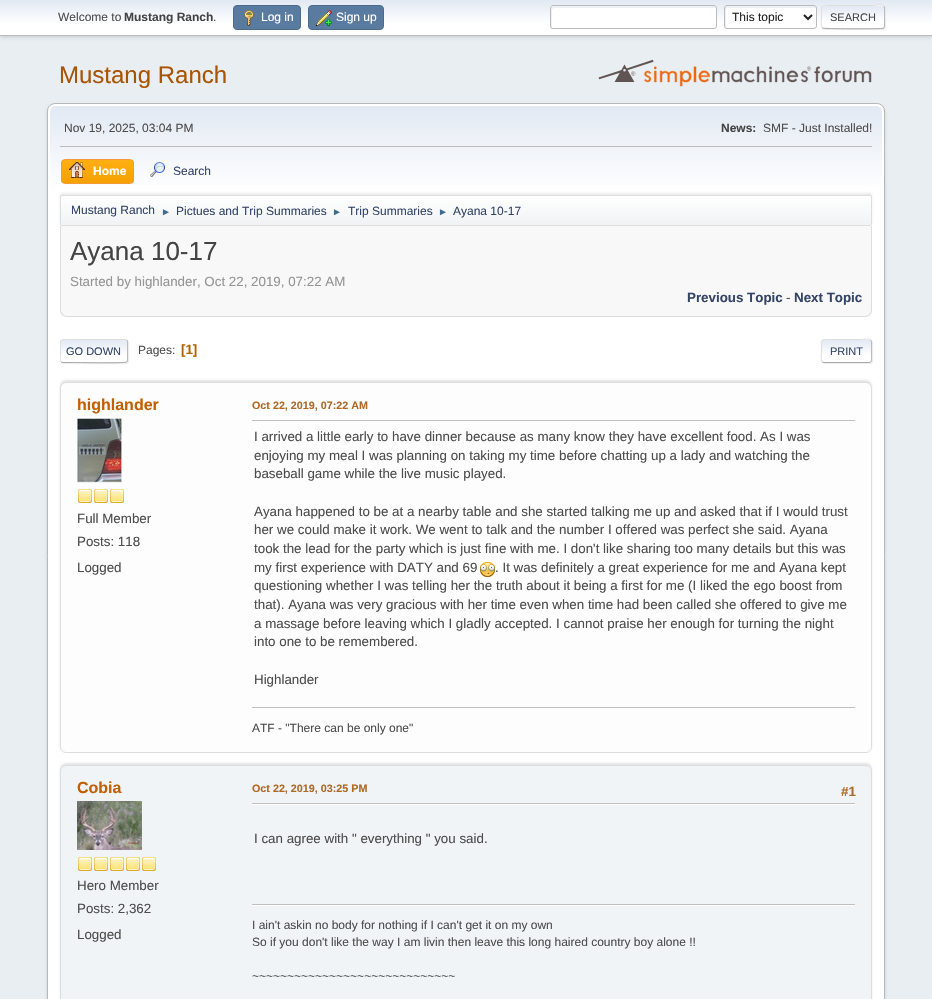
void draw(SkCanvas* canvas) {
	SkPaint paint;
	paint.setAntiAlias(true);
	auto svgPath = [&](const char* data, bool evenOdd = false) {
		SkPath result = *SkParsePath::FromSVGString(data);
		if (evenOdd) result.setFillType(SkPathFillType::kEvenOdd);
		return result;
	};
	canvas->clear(0xffe9eef2);
	paint.setColor(0x29000000);
	paint.setMaskFilter(SkMaskFilter::MakeBlur(kNormal_SkBlurStyle, 2));
	canvas->drawRect(SkRect::MakeXYWH(0, 1, 932, 36), paint);
	paint.setMaskFilter(nullptr);
	{
		const SkColor colors[] = {0xffe2e9f3, 0xffffffff};
		const float stops[] = {0, 0.7};
		const SkPoint ends[] = {{466, 0}, {466, 35}};
		paint.setShader(SkGradientShader::MakeLinear(ends, colors, stops, 2, SkTileMode::kClamp));
		paint.setAlpha(255);
	}
	canvas->drawRect(SkRect::MakeXYWH(0, 0, 932, 35), paint);
	paint.setShader(nullptr);
	paint.setColor(0xffbbbbbb);
	canvas->drawRect(SkRect::MakeXYWH(0, 35, 932, 1), paint);
	SkFont f1(fontMgr->matchFamilyStyle("Liberation Sans", SkFontStyle::Normal()), 12);
	f1.setSubpixel(true);
	paint.setColor(0xff4d4d4d);
	canvas->drawString("Welcome to", 58, 21, f1, paint);
	SkFont f2(fontMgr->matchFamilyStyle("Liberation Sans", SkFontStyle::Bold()), 12);
	f2.setSubpixel(true);
	paint.setColor(0xff444444);
	canvas->drawString("Mustang Ranch", 124, 21, f2, paint);
	paint.setColor(0xff4d4d4d);
	canvas->drawString(".", 213, 21, f1, paint);
	paint.setColor(0xff597b9f);
	canvas->drawRoundRect(SkRect::MakeXYWH(233.5, 5.5, 67, 24), 3.5, 3.5, paint);
	paint.setStroke(true);
	paint.setStrokeWidth(1);
	paint.setColor(0xff4a6b8c);
	canvas->drawRoundRect(SkRect::MakeXYWH(233.5, 5.5, 67, 24), 3.5, 3.5, paint);
	canvas->drawImageRect(SkImages::DeferredFromEncodedData(SkData::MakeFromFileName("img1.png")), SkRect::MakeXYWH(244, 10, 10, 16), SkSamplingOptions());
	paint.setStroke(false);
	paint.setColor(0xffffffff);
	canvas->drawString("Log in", 261, 21, f1, paint);
	paint.setColor(0xff597b9f);
	canvas->drawRoundRect(SkRect::MakeXYWH(308.5, 5.5, 75, 24), 3.5, 3.5, paint);
	paint.setStroke(true);
	paint.setColor(0xff4a6b8c);
	canvas->drawRoundRect(SkRect::MakeXYWH(308.5, 5.5, 75, 24), 3.5, 3.5, paint);
	canvas->drawImageRect(SkImages::DeferredFromEncodedData(SkData::MakeFromFileName("img2.png")), SkRect::MakeXYWH(316, 10, 16, 16), SkSamplingOptions());
	paint.setStroke(false);
	paint.setColor(0xffffffff);
	canvas->drawString("Sign up", 336, 21, f1, paint);
	canvas->drawRoundRect(SkRect::MakeXYWH(550, 5, 167, 24), 3, 3, paint);
	paint.setColor(0xffecf1f8);
	canvas->drawPath(svgPath("M554 8H716V7L714 6H553C552 6 551 7 551 8C551 11 550 27 552 28V10C552 9 553 8 554 8Z"), paint);
	paint.setStroke(true);
	paint.setColor(0xffbbbbbb);
	canvas->drawRoundRect(SkRect::MakeXYWH(550.5, 5.5, 166, 23), 2.5, 2.5, paint);
	paint.setStroke(false);
	paint.setColor(0xffffffff);
	canvas->drawRoundRect(SkRect::MakeXYWH(724, 5, 93, 24), 3, 3, paint);
	paint.setColor(0xffecf1f8);
	canvas->drawPath(svgPath("M728 8H816C816 3 804 6 800 6H742C723 6 725 2 725 17C725 19 724 27 726 28V10C726 9 727 8 728 8Z"), paint);
	paint.setStroke(true);
	paint.setColor(0xffbbbbbb);
	canvas->drawRoundRect(SkRect::MakeXYWH(724.5, 5.5, 92, 23), 2.5, 2.5, paint);
	paint.setStrokeWidth(2);
	paint.setColor(0xff222222);
	canvas->drawPath(svgPath("M804 15L808 19L812 15"), paint);
	paint.setStroke(false);
	canvas->drawString("This topic", 732, 21, f1, paint);
	paint.setColor(0x91dddddd);
	paint.setMaskFilter(SkMaskFilter::MakeBlur(kNormal_SkBlurStyle, 0.5));
	canvas->drawRoundRect(SkRect::MakeXYWH(822, 6, 64, 24), 3, 3, paint);
	paint.setMaskFilter(nullptr);
	canvas->save();
	canvas->clipPath(svgPath("M824 5H882C883.5 5 885 6.5 885 8V26C885 27.5 883.5 29 882 29H824C822.5 29 821 27.5 821 26V8C821 6.5 822.5 5 824 5Z"), true);
	{
		const SkColor colors[] = {0xffe2e9f3, 0xffffffff};
		const float stops[] = {0, 0.7};
		const SkPoint ends[] = {{853, -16}, {853, 6}};
		paint.setShader(SkGradientShader::MakeLinear(ends, colors, stops, 2, SkTileMode::kClamp));
		paint.setAlpha(255);
	}
	canvas->drawRect(SkRect::MakeXYWH(821, 5, 64, 1), paint);
	{
		const SkColor colors[] = {0xffe2e9f3, 0xffffffff};
		const float stops[] = {0, 0.7};
		const SkPoint ends[] = {{853, 6}, {853, 28}};
		paint.setShader(SkGradientShader::MakeLinear(ends, colors, stops, 2, SkTileMode::kClamp));
		paint.setAlpha(255);
	}
	canvas->drawRect(SkRect::MakeXYWH(821, 6, 64, 22), paint);
	{
		const SkColor colors[] = {0xffe2e9f3, 0xffffffff};
		const float stops[] = {0, 0.7};
		const SkPoint ends[] = {{853, 28}, {853, 50}};
		paint.setShader(SkGradientShader::MakeLinear(ends, colors, stops, 2, SkTileMode::kClamp));
		paint.setAlpha(255);
	}
	canvas->drawRect(SkRect::MakeXYWH(821, 28, 64, 1), paint);
	canvas->restore();
	paint.setStroke(true);
	paint.setStrokeWidth(1);
	paint.setShader(nullptr);
	paint.setColor(0xffbbbbbb);
	canvas->drawPath(svgPath("M884 6C884 6.5 884.5 7.5 884.5 8V26C884.5 26.5 884 27.5 884 28"), paint);
	paint.setColor(0xffaaaaaa);
	canvas->drawPath(svgPath("M884 28L882 28.5C877 29 823.5 29 822.5 28H822"), paint);
	paint.setColor(0xffdddddd);
	canvas->drawPath(svgPath("M822 28C820.5 26 821.5 19 821.5 17C821.5 3.5 819.5 5.5 833.5 5.5H872.5C876 5.5 881 3.5 884 6"), paint);
	SkFont f3(fontMgr->matchFamilyStyle("Liberation Sans", SkFontStyle::Normal()), 11);
	f3.setSubpixel(true);
	paint.setStroke(false);
	paint.setColor(0xff444444);
	canvas->drawString("SEARCH", 830, 21, f3, paint);
	SkFont f4(fontMgr->matchFamilyStyle("Liberation Sans", SkFontStyle::Normal()), 24);
	f4.setSubpixel(true);
	paint.setColor(0xffa85400);
	canvas->drawString("Mustang Ranch", 59, 83, f4, paint);
	canvas->drawImageRect(SkImages::DeferredFromEncodedData(SkData::MakeFromFileName("img3.png")), SkRect::MakeXYWH(598, 59, 274, 28), SkSamplingOptions());
	paint.setColor(0x24000000);
	paint.setMaskFilter(SkMaskFilter::MakeBlur(kNormal_SkBlurStyle, 1.5));
	canvas->drawRoundRect(SkRect::MakeXYWH(47, 105, 838, 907), 8, 8, paint);
	paint.setMaskFilter(nullptr);
	paint.setColor(0xffffffff);
	canvas->drawRoundRect(SkRect::MakeXYWH(47.5, 103.5, 837, 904), 7.5, 7.5, paint);
	paint.setStroke(true);
	paint.setColor(0xffb8b8b8);
	canvas->drawRoundRect(SkRect::MakeXYWH(47.5, 103.5, 837, 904), 7.5, 7.5, paint);
	paint.setStroke(false);
	{
		const SkColor colors[] = {0xffe2e9f3, 0xffffffff};
		const float stops[] = {0, 0.7};
		const SkPoint ends[] = {{466, 106}, {466, 228}};
		paint.setShader(SkGradientShader::MakeLinear(ends, colors, stops, 2, SkTileMode::kClamp));
		paint.setAlpha(255);
	}
	canvas->drawPath(svgPath("M56 106H876C879.5 106 882 108.5 882 112V228H50V112C50 108.5 52.5 106 56 106Z"), paint);
	paint.setShader(nullptr);
	paint.setColor(0xffbbbbbb);
	canvas->drawRect(SkRect::MakeXYWH(60, 146, 812, 1), paint);
	paint.setColor(0xff4d4d4d);
	canvas->drawString("Nov 19, 2025, 03:04 PM", 64, 132, f1, paint);
	paint.setColor(0xff444444);
	canvas->drawString("News:", 721, 132, f2, paint);
	paint.setColor(0xff4d4d4d);
	canvas->drawString("SMF - Just Installed!", 763, 132, f1, paint);
	canvas->save();
	canvas->clipPath(svgPath("M65 159H130C132 159 134 161 134 163V180C134 182 132 184 130 184H65C63 184 61 182 61 180V163C61 161 63 159 65 159Z"), true);
	{
		const SkColor colors[] = {0xffffae14, 0xfff5a100};
		const float stops[] = {0, 1};
		const SkPoint ends[] = {{98, 160}, {98, 183}};
		paint.setShader(SkGradientShader::MakeLinear(ends, colors, stops, 2, SkTileMode::kClamp));
		paint.setAlpha(255);
	}
	canvas->drawRect(SkRect::MakeXYWH(61, 160, 73, 23), paint);
	canvas->restore();
	paint.setStroke(true);
	paint.setShader(nullptr);
	paint.setColor(0xfff49a3a);
	canvas->drawRoundRect(SkRect::MakeXYWH(61.5, 159.5, 72, 24), 3.5, 3.5, paint);
	canvas->drawImageRect(SkImages::DeferredFromEncodedData(SkData::MakeFromFileName("img4.png")), SkRect::MakeXYWH(69, 162, 16, 16), SkSamplingOptions());
	paint.setStroke(false);
	paint.setColor(0xffffffff);
	canvas->drawString("Home", 93, 175, f2, paint);
	canvas->drawImageRect(SkImages::DeferredFromEncodedData(SkData::MakeFromFileName("img5.png")), SkRect::MakeXYWH(150, 162, 15, 15), SkSamplingOptions());
	paint.setColor(0xff334466);
	canvas->drawString("Search", 173, 175, f1, paint);
	paint.setColor(0x14000000);
	paint.setMaskFilter(SkMaskFilter::MakeBlur(kNormal_SkBlurStyle, 1));
	canvas->drawRoundRect(SkRect::MakeXYWH(60, 193, 812, 31), 2, 2, paint);
	paint.setMaskFilter(nullptr);
	canvas->save();
	canvas->clipPath(svgPath("M62 195H870C871 195 872 196 872 197V224C872 225 871 226 870 226H62C61 226 60 225 60 224V197C60 196 61 195 62 195Z"), true);
	{
		const SkColor colors[] = {0xffffffff, 0xfff1f3f5};
		const float stops[] = {0, 0.95};
		const SkPoint ends[] = {{466, 196}, {466, 225}};
		paint.setShader(SkGradientShader::MakeLinear(ends, colors, stops, 2, SkTileMode::kClamp));
		paint.setAlpha(255);
	}
	canvas->drawRect(SkRect::MakeXYWH(60, 196, 812, 29), paint);
	canvas->restore();
	paint.setStroke(true);
	paint.setShader(nullptr);
	paint.setColor(0xffdddddd);
	canvas->drawRoundRect(SkRect::MakeXYWH(60.5, 195.5, 811, 30), 1.5, 1.5, paint);
	paint.setStroke(false);
	paint.setColor(0xff334466);
	canvas->drawString("Mustang Ranch", 71, 214, f1, paint);
	SkFont f5(fontMgr->matchFamilyStyle("Liberation Sans", SkFontStyle::Normal()), 10);
	f5.setSubpixel(true);
	paint.setColor(0xff3f6b8c);
	canvas->drawString("►", 161, 215, f5, paint);
	paint.setColor(0xff334466);
	canvas->drawString("Pictues and Trip Summaries", 176, 215, f1, paint);
	paint.setColor(0xff3f6b8c);
	canvas->drawString("►", 332, 215, f5, paint);
	paint.setColor(0xff334466);
	canvas->drawString("Trip Summaries", 348, 215, f1, paint);
	paint.setColor(0xff3f6b8c);
	canvas->drawString("►", 438, 215, f5, paint);
	paint.setColor(0xff334466);
	canvas->drawString("Ayana 10-17", 453, 215, f1, paint);
	paint.setColor(0xfff8f8f8);
	canvas->drawPath(svgPath("M60 226H872V310C872 314 869 317 865 317H67C63 317 60 314 60 310Z"), paint);
	paint.setColor(0xffdddddd);
	canvas->drawPath(svgPath("M60 226H872V310C872 314 869 317 865 317H67C63 317 60 314 60 310ZM61 226H871V310C871 313 868 316 865 316H67C64 316 61 313 61 310Z", true), paint);
	SkFont f6(fontMgr->matchFamilyStyle("Liberation Sans", SkFontStyle::Normal()), 26);
	f6.setSubpixel(true);
	paint.setColor(0xff444444);
	canvas->drawString("Ayana 10-17", 70, 260, f6, paint);
	SkFont f7(fontMgr->matchFamilyStyle("Liberation Sans", SkFontStyle::Normal()), 13.35);
	f7.setSubpixel(true);
	paint.setColor(0xff959595);
	canvas->drawString("Started by highlander, Oct 22, 2019, 07:22 AM", 70, 286, f7, paint);
	SkFont f8(fontMgr->matchFamilyStyle("Liberation Sans", SkFontStyle::Bold()), 13.35);
	f8.setSubpixel(true);
	paint.setColor(0xff334466);
	canvas->drawString("Previous Topic", 687, 302, f8, paint);
	paint.setColor(0xff4d4d4d);
	canvas->drawString("-", 786, 302, f7, paint);
	paint.setColor(0xff334466);
	canvas->drawString("Next Topic", 794, 302, f8, paint);
	paint.setColor(0x91dddddd);
	paint.setMaskFilter(SkMaskFilter::MakeBlur(kNormal_SkBlurStyle, 0.5));
	canvas->drawRoundRect(SkRect::MakeXYWH(61, 340, 68, 24), 3, 3, paint);
	paint.setMaskFilter(nullptr);
	canvas->save();
	canvas->clipPath(svgPath("M63 339H125C126.5 339 128 340.5 128 342V360C128 361.5 126.5 363 125 363H63C61.5 363 60 361.5 60 360V342C60 340.5 61.5 339 63 339Z"), true);
	{
		const SkColor colors[] = {0xffe2e9f3, 0xffffffff};
		const float stops[] = {0, 0.7};
		const SkPoint ends[] = {{94, 340}, {94, 362}};
		paint.setShader(SkGradientShader::MakeLinear(ends, colors, stops, 2, SkTileMode::kClamp));
		paint.setAlpha(255);
	}
	canvas->drawRect(SkRect::MakeXYWH(60, 340, 68, 22), paint);
	{
		const SkColor colors[] = {0xffe2e9f3, 0xffffffff};
		const float stops[] = {0, 0.7};
		const SkPoint ends[] = {{94, 362}, {94, 384}};
		paint.setShader(SkGradientShader::MakeLinear(ends, colors, stops, 2, SkTileMode::kClamp));
		paint.setAlpha(255);
	}
	canvas->drawRect(SkRect::MakeXYWH(60, 362, 68, 1), paint);
	canvas->restore();
	paint.setStroke(true);
	paint.setShader(nullptr);
	paint.setColor(0xffbbbbbb);
	canvas->drawPath(svgPath("M127 340C127 340.5 127.5 341.5 127.5 342V360C127.5 360.5 127 361.5 127 362"), paint);
	paint.setColor(0xffaaaaaa);
	canvas->drawPath(svgPath("M127 362H126.5C124.5 363.5 79.5 362.5 73.5 362.5H63L61 362"), paint);
	canvas->save();
	canvas->clipRect(SkRect::MakeXYWH(60, 332, 812, 38));
	paint.setColor(0xffdddddd);
	canvas->drawPath(svgPath("M61 362C59.5 360 60.5 356 60.5 354C60.5 337.5 57 339.5 73.5 339.5H125L127 340"), paint);
	canvas->restore();
	paint.setStroke(false);
	paint.setColor(0xff334466);
	canvas->drawString("GO DOWN", 66, 355, f3, paint);
	paint.setColor(0xff4d4d4d);
	canvas->drawString("Pages:", 138, 354, f1, paint);
	paint.setColor(0xffb46100);
	canvas->drawString("[1]", 181, 354, f8, paint);
	canvas->save();
	canvas->clipPath(svgPath("M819 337H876V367H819ZM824 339H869C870.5 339 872 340.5 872 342V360C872 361.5 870.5 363 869 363H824C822.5 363 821 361.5 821 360V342C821 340.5 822.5 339 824 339Z", true), true);
	paint.setColor(0x91dddddd);
	paint.setMaskFilter(SkMaskFilter::MakeBlur(kNormal_SkBlurStyle, 0.5));
	canvas->drawRoundRect(SkRect::MakeXYWH(822, 340, 51, 24), 3, 3, paint);
	paint.setMaskFilter(nullptr);
	canvas->restore();
	paint.setColor(0xffffffff);
	canvas->drawRoundRect(SkRect::MakeXYWH(821, 339, 51, 24), 3, 3, paint);
	canvas->save();
	canvas->clipPath(svgPath("M824 339H869C870.5 339 872 340.5 872 342V360C872 361.5 870.5 363 869 363H824C822.5 363 821 361.5 821 360V342C821 340.5 822.5 339 824 339Z"), true);
	{
		const SkColor colors[] = {0xffe2e9f3, 0xffffffff};
		const float stops[] = {0, 0.7};
		const SkPoint ends[] = {{847, 340}, {847, 362}};
		paint.setShader(SkGradientShader::MakeLinear(ends, colors, stops, 2, SkTileMode::kClamp));
		paint.setAlpha(255);
	}
	canvas->drawRect(SkRect::MakeXYWH(821, 340, 51, 22), paint);
	canvas->restore();
	paint.setStroke(true);
	paint.setShader(nullptr);
	paint.setColor(0xffbbbbbb);
	canvas->drawPath(svgPath("M871 340C871 340.5 871.5 341.5 871.5 342V360C871.5 360.5 871 361.5 871 362"), paint);
	paint.setColor(0xffaaaaaa);
	canvas->drawPath(svgPath("M871 362L869 362.5H824L822 362"), paint);
	paint.setColor(0xffdddddd);
	canvas->drawPath(svgPath("M822 362C820.5 360 821.5 353 821.5 351C821.5 338.5 819 339.5 831.5 339.5H861.5C864.5 339.5 868.5 338 871 340"), paint);
	paint.setStroke(false);
	paint.setColor(0xff334466);
	canvas->drawString("PRINT", 830, 355, f3, paint);
	paint.setColor(0x1a000000);
	paint.setMaskFilter(SkMaskFilter::MakeBlur(kNormal_SkBlurStyle, 1));
	canvas->drawRoundRect(SkRect::MakeXYWH(60, 380, 812, 371), 6, 6, paint);
	paint.setMaskFilter(nullptr);
	paint.setColor(0xfffdfdfd);
	canvas->drawRoundRect(SkRect::MakeXYWH(60.5, 382.5, 811, 370), 5.5, 5.5, paint);
	paint.setStroke(true);
	paint.setColor(0xffdddddd);
	canvas->drawRoundRect(SkRect::MakeXYWH(60.5, 382.5, 811, 370), 5.5, 5.5, paint);
	SkFont f9(fontMgr->matchFamilyStyle("Liberation Sans", SkFontStyle::Bold()), 16);
	f9.setSubpixel(true);
	paint.setStroke(false);
	paint.setColor(0xffc06002);
	canvas->drawString("highlander", 77, 410, f9, paint);
	canvas->drawImageRect(SkImages::DeferredFromEncodedData(SkData::MakeFromFileName("img6.png")), SkRect::MakeXYWH(77, 418, 45, 65), SkSamplingOptions());
	canvas->drawImageRect(SkImages::DeferredFromEncodedData(SkData::MakeFromFileName("img7.png")), SkRect::MakeXYWH(78, 489, 14, 14), SkSamplingOptions());
	canvas->drawImageRect(SkImages::DeferredFromEncodedData(SkData::MakeFromFileName("img7.png")), SkRect::MakeXYWH(94, 489, 14, 14), SkSamplingOptions());
	canvas->drawImageRect(SkImages::DeferredFromEncodedData(SkData::MakeFromFileName("img7.png")), SkRect::MakeXYWH(110, 489, 14, 14), SkSamplingOptions());
	paint.setColor(0xff4d4d4d);
	canvas->drawString("Full Member", 77, 523, f7, paint);
	canvas->drawString("Posts: 118", 77, 546, f7, paint);
	canvas->drawString("Logged", 77, 572, f7, paint);
	SkFont f10(fontMgr->matchFamilyStyle("Liberation Sans", SkFontStyle::Bold()), 10.75);
	f10.setSubpixel(true);
	paint.setColor(0xffad6825);
	canvas->drawString("Oct 22, 2019, 07:22 AM", 252, 409, f10, paint);
	paint.setColor(0xffbfbfbf);
	canvas->drawRect(SkRect::MakeXYWH(252, 420, 603, 1), paint);
	paint.setColor(0xff4d4d4d);
	canvas->drawString("I arrived a little early to have dinner because as many know they have excellent food. As I was", 254, 441, f7, paint);
	canvas->drawString("enjoying my meal I was planning on taking my time before chatting up a lady and watching the", 254, 460, f7, paint);
	canvas->drawString("baseball game while the live music played.", 254, 478, f7, paint);
	canvas->drawString("Ayana happened to be at a nearby table and she started talking me up and asked that if I would trust", 254, 516, f7, paint);
	canvas->drawString("her we could make it work. We went to talk and the number I offered was perfect she said. Ayana", 254, 534, f7, paint);
	canvas->drawString("took the lead for the party which is just fine with me. I don't like sharing too many details but this was", 254, 553, f7, paint);
	canvas->drawString("my first experience with DATY and 69", 254, 572, f7, paint);
	canvas->drawImageRect(SkImages::DeferredFromEncodedData(SkData::MakeFromFileName("img8.png")), SkRect::MakeXYWH(480, 562, 15, 15), SkSamplingOptions());
	canvas->drawString(". It was definitely a great experience for me and Ayana kept", 495, 572, f7, paint);
	canvas->drawString("questioning whether I was telling her the truth about it being a first for me (I liked the ego boost from", 254, 590, f7, paint);
	canvas->drawString("that). Ayana was very gracious with her time even when time had been called she offered to give me", 254, 609, f7, paint);
	canvas->drawString("a massage before leaving which I gladly accepted. I cannot praise her enough for turning the night", 254, 628, f7, paint);
	canvas->drawString("into one to be remembered.", 254, 646, f7, paint);
	canvas->drawString("Highlander", 254, 684, f7, paint);
	paint.setColor(0xffbfbfbf);
	canvas->drawRect(SkRect::MakeXYWH(252, 707, 603, 1), paint);
	paint.setColor(0xff4d4d4d);
	canvas->drawString("ATF - \"There can be only one\"", 252, 732, f1, paint);
	paint.setColor(0x1a000000);
	paint.setMaskFilter(SkMaskFilter::MakeBlur(kNormal_SkBlurStyle, 1));
	canvas->drawRoundRect(SkRect::MakeXYWH(60, 763, 812, 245), 6, 6, paint);
	paint.setMaskFilter(nullptr);
	paint.setColor(0xfff0f4f7);
	canvas->drawRoundRect(SkRect::MakeXYWH(60.5, 765.5, 811, 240), 5.5, 5.5, paint);
	paint.setStroke(true);
	paint.setColor(0xffdddddd);
	canvas->drawRoundRect(SkRect::MakeXYWH(60.5, 765.5, 811, 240), 5.5, 5.5, paint);
	paint.setStroke(false);
	paint.setColor(0xffc06002);
	canvas->drawString("Cobia", 77, 793, f9, paint);
	canvas->drawImageRect(SkImages::DeferredFromEncodedData(SkData::MakeFromFileName("img9.png")), SkRect::MakeXYWH(77, 801, 65, 49), SkSamplingOptions());
	canvas->drawImageRect(SkImages::DeferredFromEncodedData(SkData::MakeFromFileName("img10.png")), SkRect::MakeXYWH(78, 857, 14, 14), SkSamplingOptions());
	canvas->drawImageRect(SkImages::DeferredFromEncodedData(SkData::MakeFromFileName("img10.png")), SkRect::MakeXYWH(94, 857, 14, 14), SkSamplingOptions());
	canvas->drawImageRect(SkImages::DeferredFromEncodedData(SkData::MakeFromFileName("img10.png")), SkRect::MakeXYWH(110, 857, 14, 14), SkSamplingOptions());
	canvas->drawImageRect(SkImages::DeferredFromEncodedData(SkData::MakeFromFileName("img10.png")), SkRect::MakeXYWH(126, 857, 14, 14), SkSamplingOptions());
	canvas->drawImageRect(SkImages::DeferredFromEncodedData(SkData::MakeFromFileName("img10.png")), SkRect::MakeXYWH(142, 857, 14, 14), SkSamplingOptions());
	paint.setColor(0xff4d4d4d);
	canvas->drawString("Hero Member", 77, 890, f7, paint);
	canvas->drawString("Posts: 2,362", 77, 913, f7, paint);
	canvas->drawString("Logged", 77, 939, f7, paint);
	paint.setColor(0xffad6825);
	canvas->drawString("Oct 22, 2019, 03:25 PM", 252, 792, f10, paint);
	canvas->drawString("#1", 841, 796, f8, paint);
	paint.setColor(0xffffffff);
	canvas->drawRect(SkRect::MakeXYWH(252, 804, 603, 1), paint);
	paint.setColor(0xffbfbfbf);
	canvas->drawRect(SkRect::MakeXYWH(252, 803, 603, 1), paint);
	paint.setColor(0xff4d4d4d);
	canvas->drawString("I can agree with \" everything \" you said.", 254, 843, f7, paint);
	paint.setColor(0xffffffff);
	canvas->drawRect(SkRect::MakeXYWH(252, 905, 603, 1), paint);
	paint.setColor(0xffbfbfbf);
	canvas->drawRect(SkRect::MakeXYWH(252, 904, 603, 1), paint);
	paint.setColor(0xff4d4d4d);
	canvas->drawString("I ain't askin no body for nothing if I can't get it on my own", 252, 929, f1, paint);
	canvas->drawString("So if you don't like the way I am livin then leave this long haired country boy alone !!", 252, 946, f1, paint);
	canvas->drawString("~~~~~~~~~~~~~~~~~~~~~~~~~~~~~", 252, 980, f1, paint);
}
